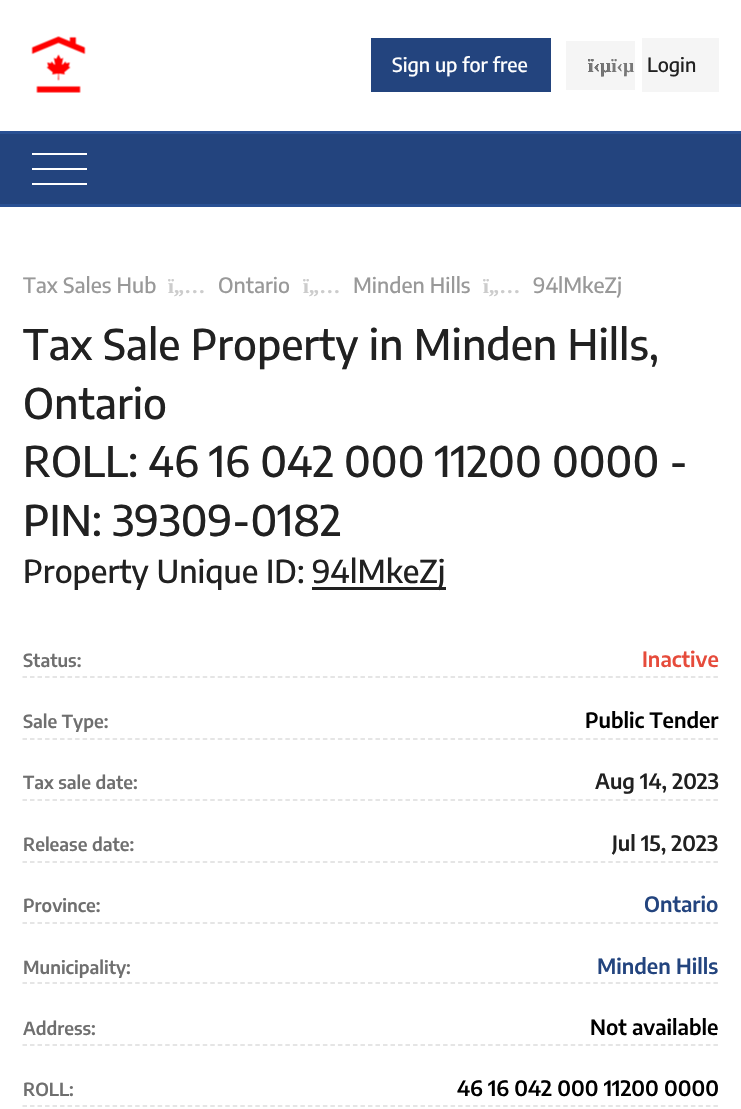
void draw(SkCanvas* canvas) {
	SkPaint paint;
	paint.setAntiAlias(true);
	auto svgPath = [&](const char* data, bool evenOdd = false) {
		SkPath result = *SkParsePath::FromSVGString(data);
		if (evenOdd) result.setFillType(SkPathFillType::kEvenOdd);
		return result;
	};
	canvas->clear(0xffffffff);
	canvas->drawImageRect(SkImages::DeferredFromEncodedData(SkData::MakeFromFileName("img1.png")), SkRect::MakeXYWH(31, 36, 55, 57), SkSamplingOptions());
	paint.setColor(0xff23447e);
	canvas->drawRect(SkRect::MakeXYWH(371, 38, 180, 54), paint);
	SkFont f1(fontMgr->matchFamilyStyle("Encode Sans", SkFontStyle(500, SkFontStyle::kNormal_Width, SkFontStyle::kUpright_Slant)), 19.5);
	f1.setSubpixel(true);
	paint.setColor(0xffffffff);
	canvas->drawString("Sign up for free", 392, 72, f1, paint);
	paint.setColor(0xfff5f5f5);
	canvas->drawRect(SkRect::MakeXYWH(566, 41, 69, 49), paint);
	canvas->drawRect(SkRect::MakeXYWH(642, 38, 77, 54), paint);
	SkFont f2(fontMgr->matchFamilyStyle("Liberation Serif", SkFontStyle::Bold()), 19.5);
	f2.setSubpixel(true);
	paint.setColor(0xff212121);
	canvas->drawString("ï‹µ", 588, 72, f2, paint);
	paint.setColor(0xff777777);
	canvas->drawString("ï‹µï‹µ", 588, 72, f2, paint);
	paint.setColor(0xff212121);
	canvas->drawString("Login", 647, 72, f1, paint);
	paint.setColor(0xff23447e);
	canvas->drawRect(SkRect::MakeXYWH(0, 134, 741, 70), paint);
	paint.setColor(0xff295093);
	canvas->drawRect(SkRect::MakeXYWH(0, 131, 741, 3), paint);
	canvas->drawRect(SkRect::MakeXYWH(0, 204, 741, 3), paint);
	paint.setColor(0xffffffff);
	canvas->drawRect(SkRect::MakeXYWH(32, 153, 55, 2), paint);
	canvas->drawRect(SkRect::MakeXYWH(32, 168, 55, 2), paint);
	canvas->drawRect(SkRect::MakeXYWH(32, 183, 55, 2), paint);
	SkFont f3(fontMgr->matchFamilyStyle("Encode Sans", SkFontStyle(500, SkFontStyle::kNormal_Width, SkFontStyle::kUpright_Slant)), 21);
	f3.setSubpixel(true);
	paint.setColor(0xff999999);
	canvas->drawString("Tax Sales Hub", 23, 293, f3, paint);
	SkFont f4(fontMgr->matchFamilyStyle("Liberation Serif", SkFontStyle::Bold()), 21);
	f4.setSubpixel(true);
	paint.setColor(0xffcccccc);
	canvas->drawString("ï„…", 168, 293, f4, paint);
	paint.setColor(0xff999999);
	canvas->drawString("Ontario", 218, 293, f3, paint);
	paint.setColor(0xffcccccc);
	canvas->drawString("ï„…", 303, 293, f4, paint);
	paint.setColor(0xff999999);
	canvas->drawString("Minden Hills", 353, 293, f3, paint);
	paint.setColor(0xffcccccc);
	canvas->drawString("ï„…", 483, 293, f4, paint);
	paint.setColor(0xff999999);
	canvas->drawString("94lMkeZj", 533, 293, f3, paint);
	SkFont f5(fontMgr->matchFamilyStyle("Encode Sans", SkFontStyle(500, SkFontStyle::kNormal_Width, SkFontStyle::kUpright_Slant)), 42);
	f5.setSubpixel(true);
	paint.setColor(0xff212121);
	canvas->drawString("Tax Sale Property in Minden Hills,", 23, 360, f5, paint);
	canvas->drawString("Ontario", 23, 419, f5, paint);
	canvas->drawString("ROLL: 46 16 042 000 11200 0000 ‐", 23, 477, f5, paint);
	canvas->drawString("PIN: 39309-0182", 23, 536, f5, paint);
	SkFont f6(fontMgr->matchFamilyStyle("Encode Sans", SkFontStyle(500, SkFontStyle::kNormal_Width, SkFontStyle::kUpright_Slant)), 31.5);
	f6.setSubpixel(true);
	canvas->drawString("Property Unique ID:", 23, 583, f6, paint);
	canvas->drawRect(SkRect::MakeXYWH(312, 587, 134, 3), paint);
	canvas->drawString("94lMkeZj", 312, 583, f6, paint);
	paint.setStroke(true);
	paint.setStrokeWidth(1.5);
	paint.setColor(0xffdddddd);
	paint.setPathEffect(SkDashPathEffect::Make({{4.5f, 3.01f}}, 0));
	canvas->drawPath(svgPath("M22.5 677H718.5"), paint);
	paint.setPathEffect(nullptr);
	SkFont f7(fontMgr->matchFamilyStyle("Encode Sans", SkFontStyle(600, SkFontStyle::kNormal_Width, SkFontStyle::kUpright_Slant)), 18);
	f7.setSubpixel(true);
	paint.setStroke(false);
	paint.setColor(0xff6f6f6f);
	canvas->drawString("Status:", 23, 667, f7, paint);
	SkFont f8(fontMgr->matchFamilyStyle("Encode Sans", SkFontStyle(600, SkFontStyle::kNormal_Width, SkFontStyle::kUpright_Slant)), 21);
	f8.setSubpixel(true);
	paint.setColor(0xffe64b3b);
	canvas->drawString("Inactive", 642, 667, f8, paint);
	paint.setStroke(true);
	paint.setColor(0xffdddddd);
	paint.setPathEffect(SkDashPathEffect::Make({{4.5f, 3.01f}}, 0));
	canvas->drawPath(svgPath("M22.5 739H718.5"), paint);
	paint.setPathEffect(nullptr);
	paint.setStroke(false);
	paint.setColor(0xff6f6f6f);
	canvas->drawString("Sale Type:", 23, 728, f7, paint);
	paint.setColor(0xff000000);
	canvas->drawString("Public Tender", 585, 728, f8, paint);
	paint.setStroke(true);
	paint.setColor(0xffdddddd);
	paint.setPathEffect(SkDashPathEffect::Make({{4.5f, 3.01f}}, 0));
	canvas->drawPath(svgPath("M22.5 800H718.5"), paint);
	paint.setPathEffect(nullptr);
	paint.setStroke(false);
	paint.setColor(0xff6f6f6f);
	canvas->drawString("Tax sale date:", 23, 789, f7, paint);
	paint.setColor(0xff212121);
	canvas->drawString("Aug 14, 2023", 595, 789, f8, paint);
	paint.setStroke(true);
	paint.setColor(0xffdddddd);
	paint.setPathEffect(SkDashPathEffect::Make({{4.5f, 3.01f}}, 0));
	canvas->drawPath(svgPath("M22.5 862H718.5"), paint);
	paint.setPathEffect(nullptr);
	paint.setStroke(false);
	paint.setColor(0xff6f6f6f);
	canvas->drawString("Release date:", 23, 851, f7, paint);
	paint.setColor(0xff212121);
	canvas->drawString("Jul 15, 2023", 612, 851, f8, paint);
	paint.setStroke(true);
	paint.setColor(0xffdddddd);
	paint.setPathEffect(SkDashPathEffect::Make({{4.5f, 3.01f}}, 0));
	canvas->drawPath(svgPath("M22.5 923H718.5"), paint);
	paint.setPathEffect(nullptr);
	paint.setStroke(false);
	paint.setColor(0xff6f6f6f);
	canvas->drawString("Province:", 23, 912, f7, paint);
	paint.setColor(0xff23447e);
	canvas->drawString("Ontario", 644, 912, f8, paint);
	paint.setStroke(true);
	paint.setColor(0xffdddddd);
	paint.setPathEffect(SkDashPathEffect::Make({{4.5f, 3.01f}}, 0));
	canvas->drawPath(svgPath("M22.5 983H718.5"), paint);
	paint.setPathEffect(nullptr);
	paint.setStroke(false);
	paint.setColor(0xff6f6f6f);
	canvas->drawString("Municipality:", 23, 974, f7, paint);
	paint.setColor(0xff23447e);
	canvas->drawString("Minden Hills", 597, 974, f8, paint);
	paint.setStroke(true);
	paint.setColor(0xffdddddd);
	paint.setPathEffect(SkDashPathEffect::Make({{4.5f, 3.01f}}, 0));
	canvas->drawPath(svgPath("M22.5 1045H718.5"), paint);
	paint.setPathEffect(nullptr);
	paint.setStroke(false);
	paint.setColor(0xff6f6f6f);
	canvas->drawString("Address:", 23, 1035, f7, paint);
	paint.setColor(0xff000000);
	canvas->drawString("Not available", 590, 1035, f8, paint);
	paint.setStroke(true);
	paint.setColor(0xffdddddd);
	paint.setPathEffect(SkDashPathEffect::Make({{4.5f, 3.01f}}, 0));
	canvas->drawPath(svgPath("M22.5 1106H718.5"), paint);
	paint.setPathEffect(nullptr);
	paint.setStroke(false);
	paint.setColor(0xff6f6f6f);
	canvas->drawString("ROLL:", 23, 1096, f7, paint);
	paint.setColor(0xff000000);
	canvas->drawString("46 16 042 000 11200 0000", 457, 1096, f8, paint);
}
